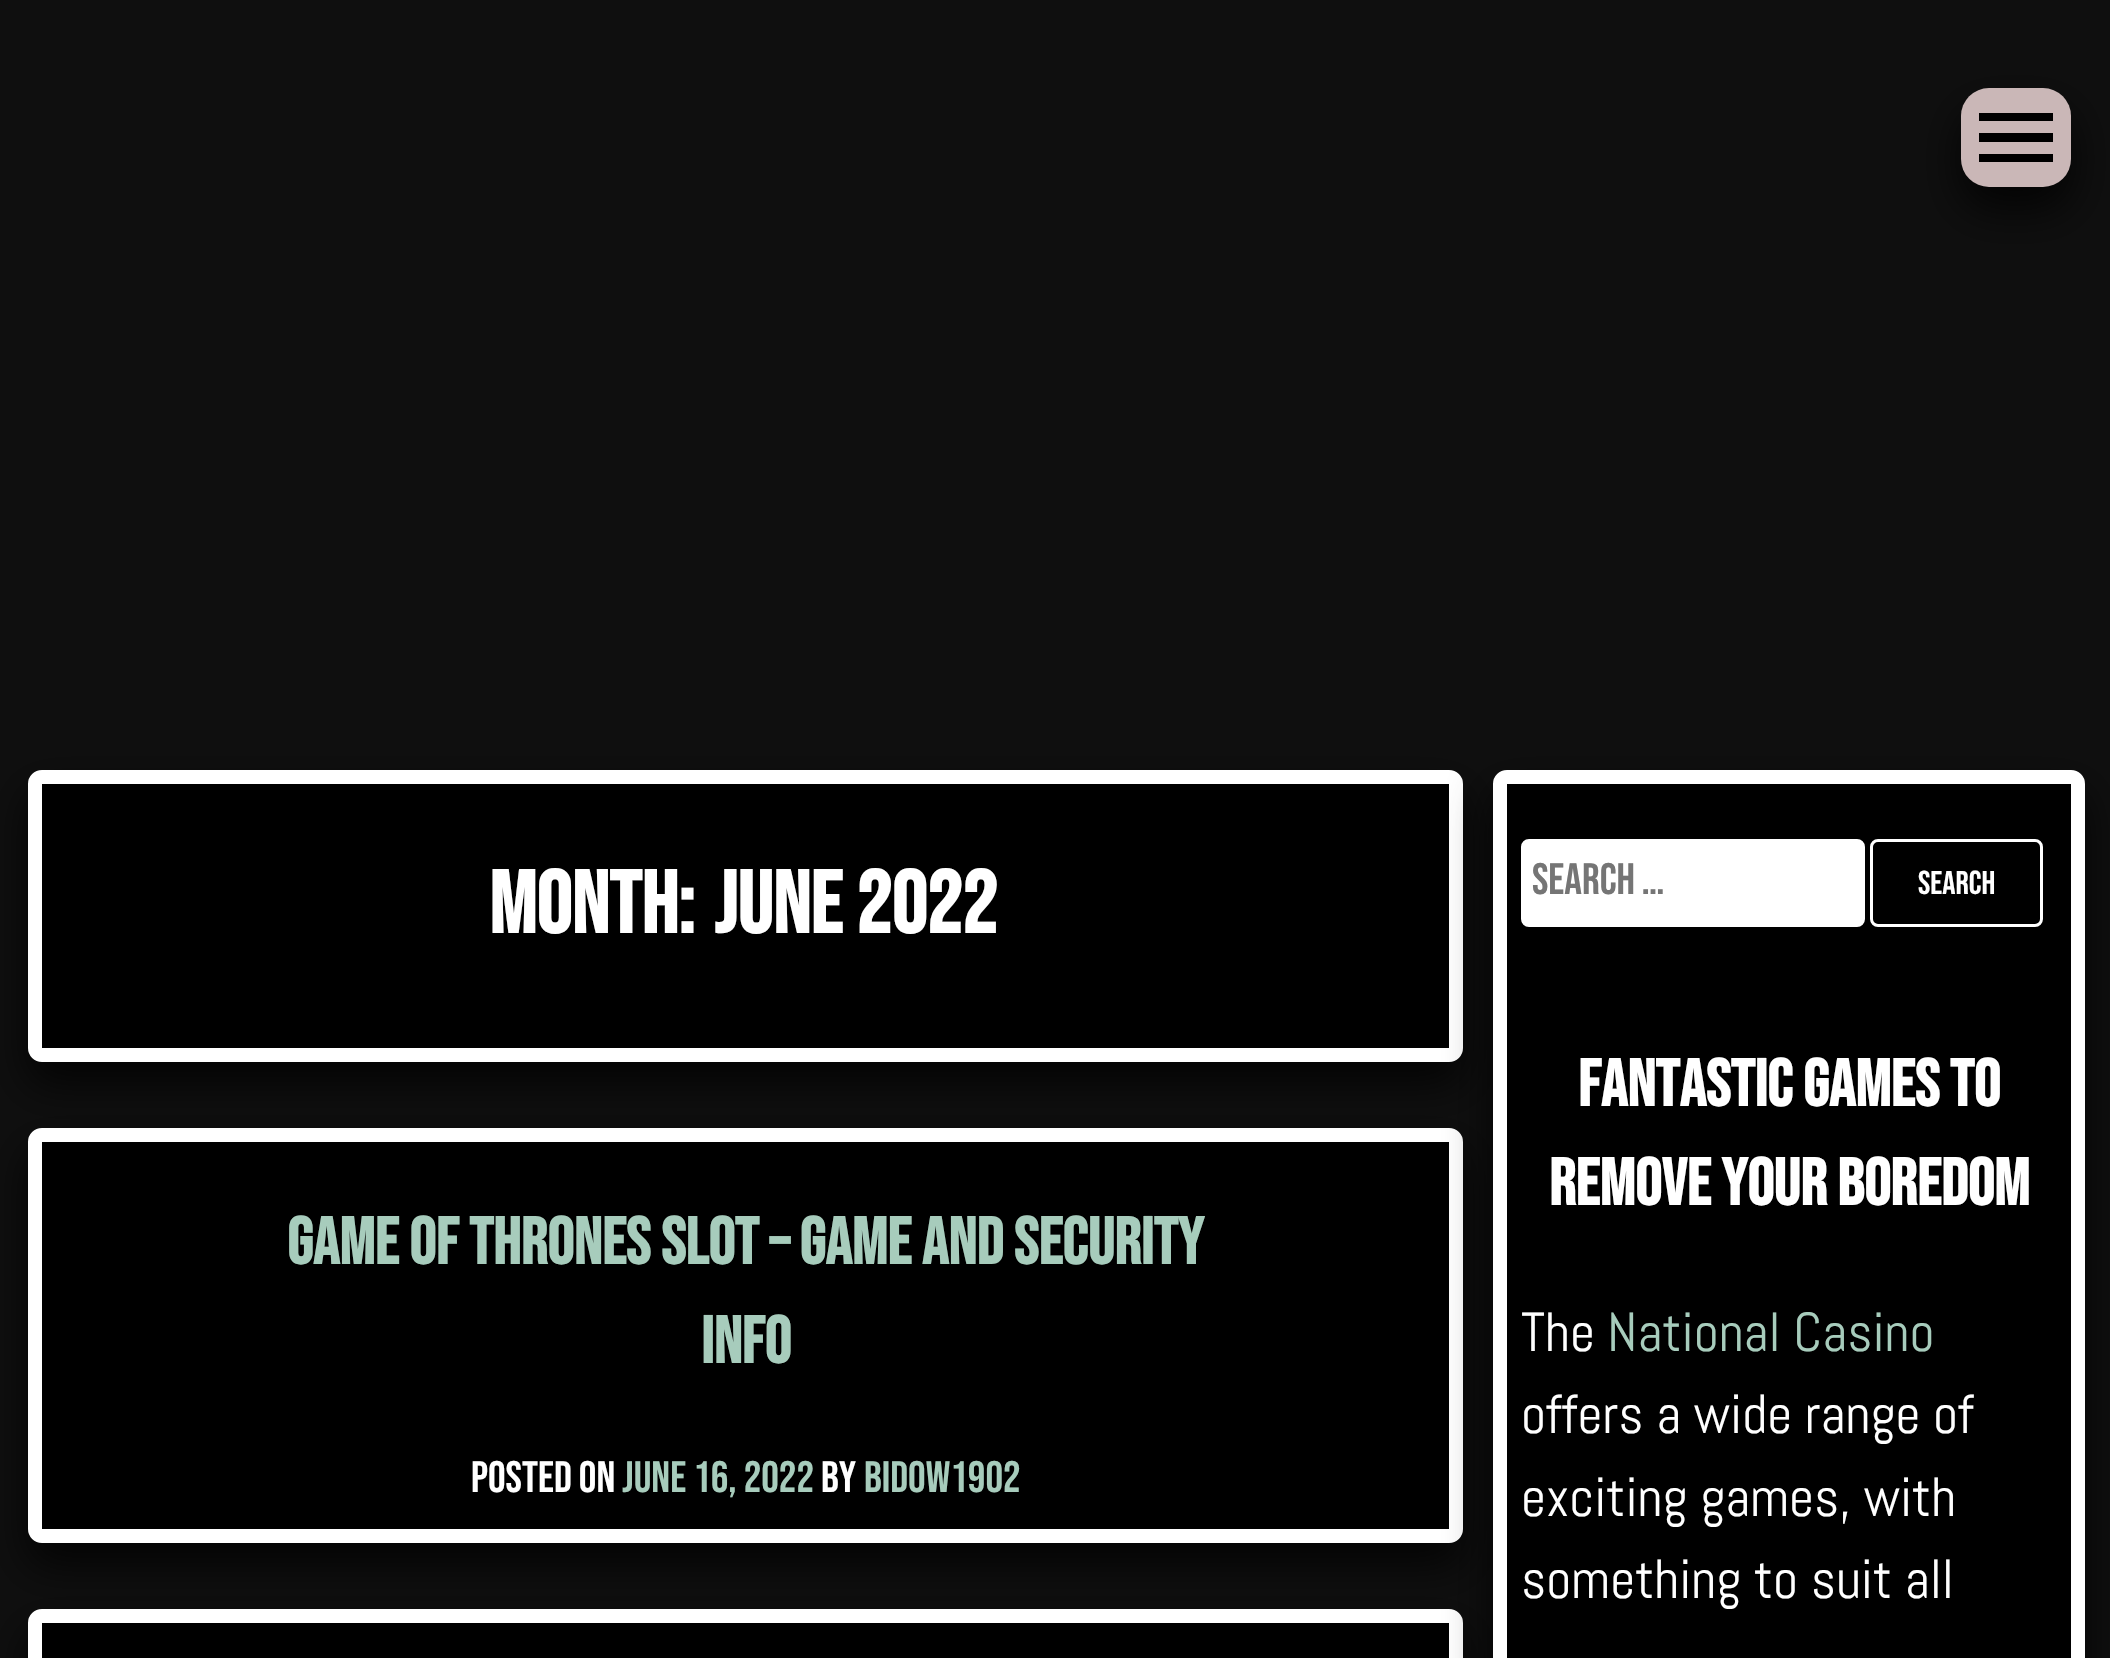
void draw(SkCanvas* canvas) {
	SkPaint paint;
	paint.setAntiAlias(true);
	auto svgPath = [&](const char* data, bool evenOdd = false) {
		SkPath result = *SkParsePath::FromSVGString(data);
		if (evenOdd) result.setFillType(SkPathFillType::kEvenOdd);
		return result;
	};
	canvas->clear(0xff0f0f0f);
	paint.setColor(0xcc000000);
	paint.setMaskFilter(SkMaskFilter::MakeBlur(kNormal_SkBlurStyle, 22));
	canvas->drawRoundRect(SkRect::MakeXYWH(1961, 110, 110, 99), 28, 28, paint);
	paint.setMaskFilter(nullptr);
	paint.setColor(0xffcab7b7);
	canvas->drawRoundRect(SkRect::MakeXYWH(1961, 88, 110, 99), 28, 28, paint);
	paint.setColor(0xff000000);
	canvas->drawPath(svgPath("M1979 162H2053V154H1979ZM1979 142H2053V133H1979ZM1979 113V121H2053V113Z"), paint);
	paint.setColor(0xcc000000);
	paint.setMaskFilter(SkMaskFilter::MakeBlur(kNormal_SkBlurStyle, 22));
	canvas->drawRoundRect(SkRect::MakeXYWH(28, 792, 1435, 292), 14, 14, paint);
	paint.setMaskFilter(nullptr);
	paint.setColor(0xff000000);
	canvas->drawRoundRect(SkRect::MakeXYWH(35, 777, 1421, 278), 7, 7, paint);
	paint.setStroke(true);
	paint.setStrokeWidth(14);
	paint.setColor(0xffffffff);
	canvas->drawRoundRect(SkRect::MakeXYWH(35, 777, 1421, 278), 7, 7, paint);
	SkFont f1(fontMgr->matchFamilyStyle("Bebas Neue", SkFontStyle::Bold()), 88);
	f1.setSubpixel(true);
	paint.setStroke(false);
	canvas->drawString("Month:", 489, 933, f1, paint);
	canvas->drawString("June 2022", 714, 933, f1, paint);
	paint.setColor(0xcc000000);
	paint.setMaskFilter(SkMaskFilter::MakeBlur(kNormal_SkBlurStyle, 22));
	canvas->drawRoundRect(SkRect::MakeXYWH(28, 1150, 1435, 415), 14, 14, paint);
	paint.setMaskFilter(nullptr);
	paint.setColor(0xff000000);
	canvas->drawRoundRect(SkRect::MakeXYWH(35, 1135, 1421, 401), 7, 7, paint);
	paint.setStroke(true);
	paint.setColor(0xffffffff);
	canvas->drawRoundRect(SkRect::MakeXYWH(35, 1135, 1421, 401), 7, 7, paint);
	SkFont f2(fontMgr->matchFamilyStyle("Bebas Neue", SkFontStyle::Bold()), 66);
	f2.setSubpixel(true);
	paint.setStroke(false);
	paint.setColor(0xffa7ccbc);
	canvas->drawString("Game of Thrones Slot – Game and Security", 287, 1264, f2, paint);
	canvas->drawString("Info", 701, 1363, f2, paint);
	SkFont f3(fontMgr->matchFamilyStyle("Bebas Neue", SkFontStyle::Normal()), 44);
	f3.setSubpixel(true);
	paint.setColor(0xffffffff);
	canvas->drawString("Posted on", 471, 1492, f3, paint);
	paint.setColor(0xffa7ccbc);
	canvas->drawString("June 16, 2022", 622, 1492, f3, paint);
	paint.setColor(0xffffffff);
	canvas->drawString("by", 821, 1492, f3, paint);
	paint.setColor(0xffa7ccbc);
	canvas->drawString("bidow1902", 864, 1492, f3, paint);
	paint.setColor(0xcc000000);
	paint.setMaskFilter(SkMaskFilter::MakeBlur(kNormal_SkBlurStyle, 22));
	canvas->drawRoundRect(SkRect::MakeXYWH(28, 1631, 1435, 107), 14, 14, paint);
	paint.setMaskFilter(nullptr);
	paint.setColor(0xff000000);
	canvas->drawRoundRect(SkRect::MakeXYWH(35, 1616, 1421, 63), 7, 7, paint);
	paint.setStroke(true);
	paint.setColor(0xffffffff);
	canvas->drawRoundRect(SkRect::MakeXYWH(35, 1616, 1421, 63), 7, 7, paint);
	paint.setStroke(false);
	paint.setColor(0xcc000000);
	paint.setMaskFilter(SkMaskFilter::MakeBlur(kNormal_SkBlurStyle, 22));
	canvas->drawRoundRect(SkRect::MakeXYWH(1493, 792, 592, 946), 14, 14, paint);
	paint.setMaskFilter(nullptr);
	paint.setColor(0xff000000);
	canvas->drawRoundRect(SkRect::MakeXYWH(1500, 777, 578, 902), 7, 7, paint);
	paint.setStroke(true);
	paint.setColor(0xffffffff);
	canvas->drawRoundRect(SkRect::MakeXYWH(1500, 777, 578, 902), 7, 7, paint);
	paint.setStroke(false);
	canvas->drawRoundRect(SkRect::MakeXYWH(1522.5, 840.5, 341, 85), 6.5, 6.5, paint);
	paint.setStroke(true);
	paint.setStrokeWidth(3);
	canvas->drawRoundRect(SkRect::MakeXYWH(1522.5, 840.5, 341, 85), 6.5, 6.5, paint);
	paint.setStroke(false);
	paint.setColor(0xff757575);
	canvas->drawString("Search …", 1532, 894, f3, paint);
	paint.setStroke(true);
	paint.setColor(0xffffffff);
	canvas->drawRoundRect(SkRect::MakeXYWH(1871.5, 840.5, 170, 85), 6.5, 6.5, paint);
	SkFont f4(fontMgr->matchFamilyStyle("Bebas Neue", SkFontStyle::Normal()), 33);
	f4.setSubpixel(true);
	paint.setStroke(false);
	canvas->drawString("SEARCH", 1918, 894, f4, paint);
	canvas->drawString("Fantastic Games To", 1578, 1106, f2, paint);
	canvas->drawString("Remove Your Boredom", 1549, 1205, f2, paint);
	SkFont f5(fontMgr->matchFamilyStyle("Abel", SkFontStyle::Normal()), 55);
	f5.setSubpixel(true);
	canvas->drawString("The", 1521, 1351, f5, paint);
	paint.setColor(0xffa7ccbc);
	canvas->drawString("National Casino", 1607, 1351, f5, paint);
	paint.setColor(0xffffffff);
	canvas->drawString("offers a wide range of", 1521, 1433, f5, paint);
	canvas->drawString("exciting games, with", 1521, 1516, f5, paint);
	canvas->drawString("something to suit all", 1521, 1598, f5, paint);
}
